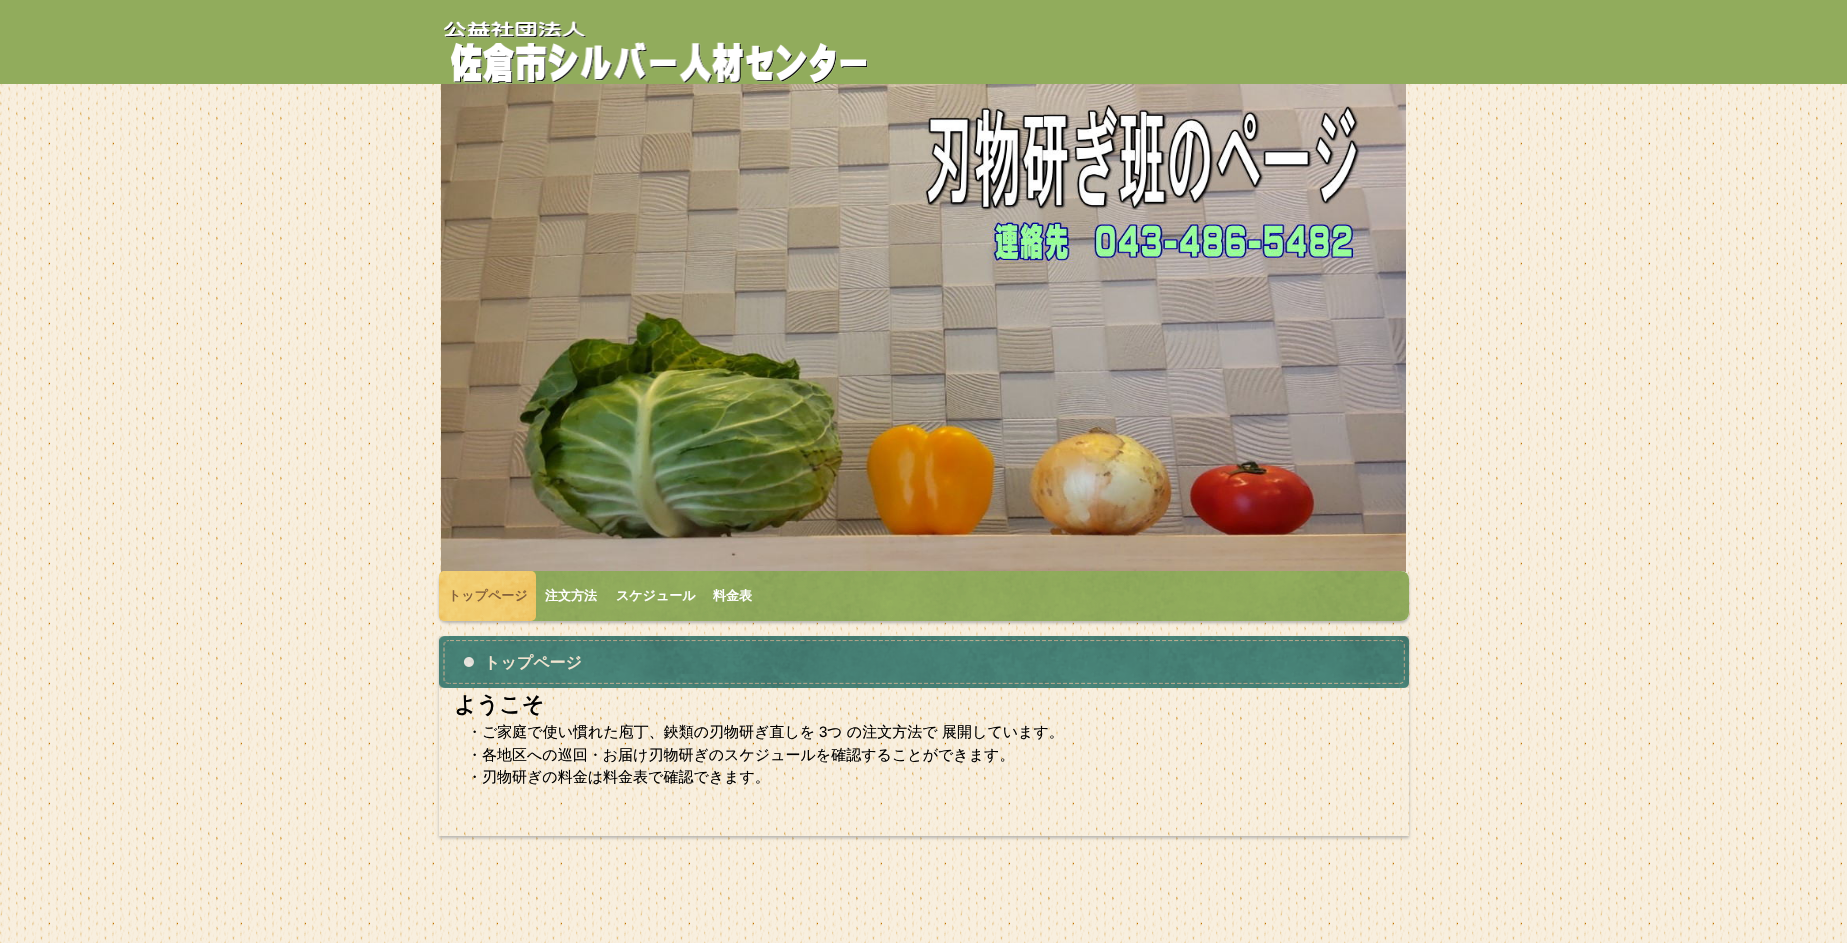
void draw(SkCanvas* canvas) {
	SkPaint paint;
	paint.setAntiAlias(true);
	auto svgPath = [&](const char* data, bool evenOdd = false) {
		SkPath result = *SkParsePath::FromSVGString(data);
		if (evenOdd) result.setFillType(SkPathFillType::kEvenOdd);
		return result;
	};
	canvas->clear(0xffffffff);
	canvas->drawImageRect(SkImages::DeferredFromEncodedData(SkData::MakeFromFileName("img1.png")), SkRect::MakeXYWH(0, 84, 1847, 859), SkSamplingOptions());
	paint.setColor(0xff91ac5c);
	canvas->drawRect(SkRect::MakeXYWH(0, 0, 1847, 84), paint);
	canvas->drawImageRect(SkImages::DeferredFromEncodedData(SkData::MakeFromFileName("img2.png")), SkRect::MakeXYWH(444, 21, 424, 63), SkSamplingOptions());
	canvas->drawImageRect(SkImages::DeferredFromEncodedData(SkData::MakeFromFileName("img3.png")), SkRect::MakeXYWH(441, 84, 965, 488), SkSamplingOptions());
	paint.setColor(0xbfa0a0a0);
	paint.setMaskFilter(SkMaskFilter::MakeBlur(kNormal_SkBlurStyle, 1.5));
	canvas->drawRoundRect(SkRect::MakeXYWH(439, 573, 970, 50), 8, 8, paint);
	paint.setMaskFilter(nullptr);
	paint.setColor(0xffffffff);
	canvas->drawRoundRect(SkRect::MakeXYWH(439, 571, 970, 50), 8, 8, paint);
	canvas->drawImageRect(SkImages::DeferredFromEncodedData(SkData::MakeFromFileName("img4.png")), SkRect::MakeXYWH(439, 571, 970, 50), SkSamplingOptions());
	canvas->drawImageRect(SkImages::DeferredFromEncodedData(SkData::MakeFromFileName("img5.png")), SkRect::MakeXYWH(439, 571, 97, 50), SkSamplingOptions());
	SkFont f1(fontMgr->matchFamilyStyle("WenQuanYi Zen Hei", SkFontStyle::Bold()), 13);
	f1.setSubpixel(true);
	paint.setColor(0xff85613b);
	canvas->drawString("トップページ", 448, 600, f1, paint);
	paint.setColor(0xffffffff);
	canvas->drawString("注文方法", 545, 600, f1, paint);
	canvas->drawString("スケジュール", 616, 600, f1, paint);
	canvas->drawString("料金表", 713, 600, f1, paint);
	canvas->save();
	canvas->clipPath(svgPath("M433 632H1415V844H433ZM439 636H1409V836H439Z", true), true);
	paint.setColor(0xbfa0a0a0);
	paint.setMaskFilter(SkMaskFilter::MakeBlur(kNormal_SkBlurStyle, 1.5));
	canvas->drawRect(SkRect::MakeXYWH(439, 638, 970, 200), paint);
	paint.setMaskFilter(nullptr);
	canvas->restore();
	canvas->drawImageRect(SkImages::DeferredFromEncodedData(SkData::MakeFromFileName("img6.png")), SkRect::MakeXYWH(439, 636, 970, 52), SkSamplingOptions());
	canvas->drawImageRect(SkImages::DeferredFromEncodedData(SkData::MakeFromFileName("img7.png")), SkRect::MakeXYWH(449, 636, 950, 52), SkSamplingOptions());
	SkFont f2(fontMgr->matchFamilyStyle("WenQuanYi Zen Hei", SkFontStyle::Bold()), 16);
	f2.setSubpixel(true);
	paint.setColor(0xfff1e4d0);
	canvas->drawString("トップページ", 484, 668, f2, paint);
	SkFont f3(fontMgr->matchFamilyStyle("WenQuanYi Zen Hei", SkFontStyle::Bold()), 22);
	f3.setSubpixel(true);
	paint.setColor(0xff000000);
	canvas->drawString("ようこそ", 454, 712, f3, paint);
	SkFont f4(fontMgr->matchFamilyStyle("WenQuanYi Zen Hei", SkFontStyle(500, SkFontStyle::kNormal_Width, SkFontStyle::kUpright_Slant)), 15);
	f4.setSubpixel(true);
	canvas->drawString("・ご家庭で使い慣れた庖丁、鋏類の刃物研ぎ直しを", 467, 737, f4, paint);
	SkFont f5(fontMgr->matchFamilyStyle("Liberation Sans", SkFontStyle::Normal()), 15);
	f5.setSubpixel(true);
	canvas->drawString("3", 819, 737, f5, paint);
	canvas->drawString("つ の注文方法で 展開しています。", 827, 737, f4, paint);
	canvas->drawString("・各地区への巡回・お届け刃物研ぎのスケジュールを確認することができます。", 467, 760, f4, paint);
	canvas->drawString("・刃物研ぎの料金は料金表で確認できます。", 467, 782, f4, paint);
}
